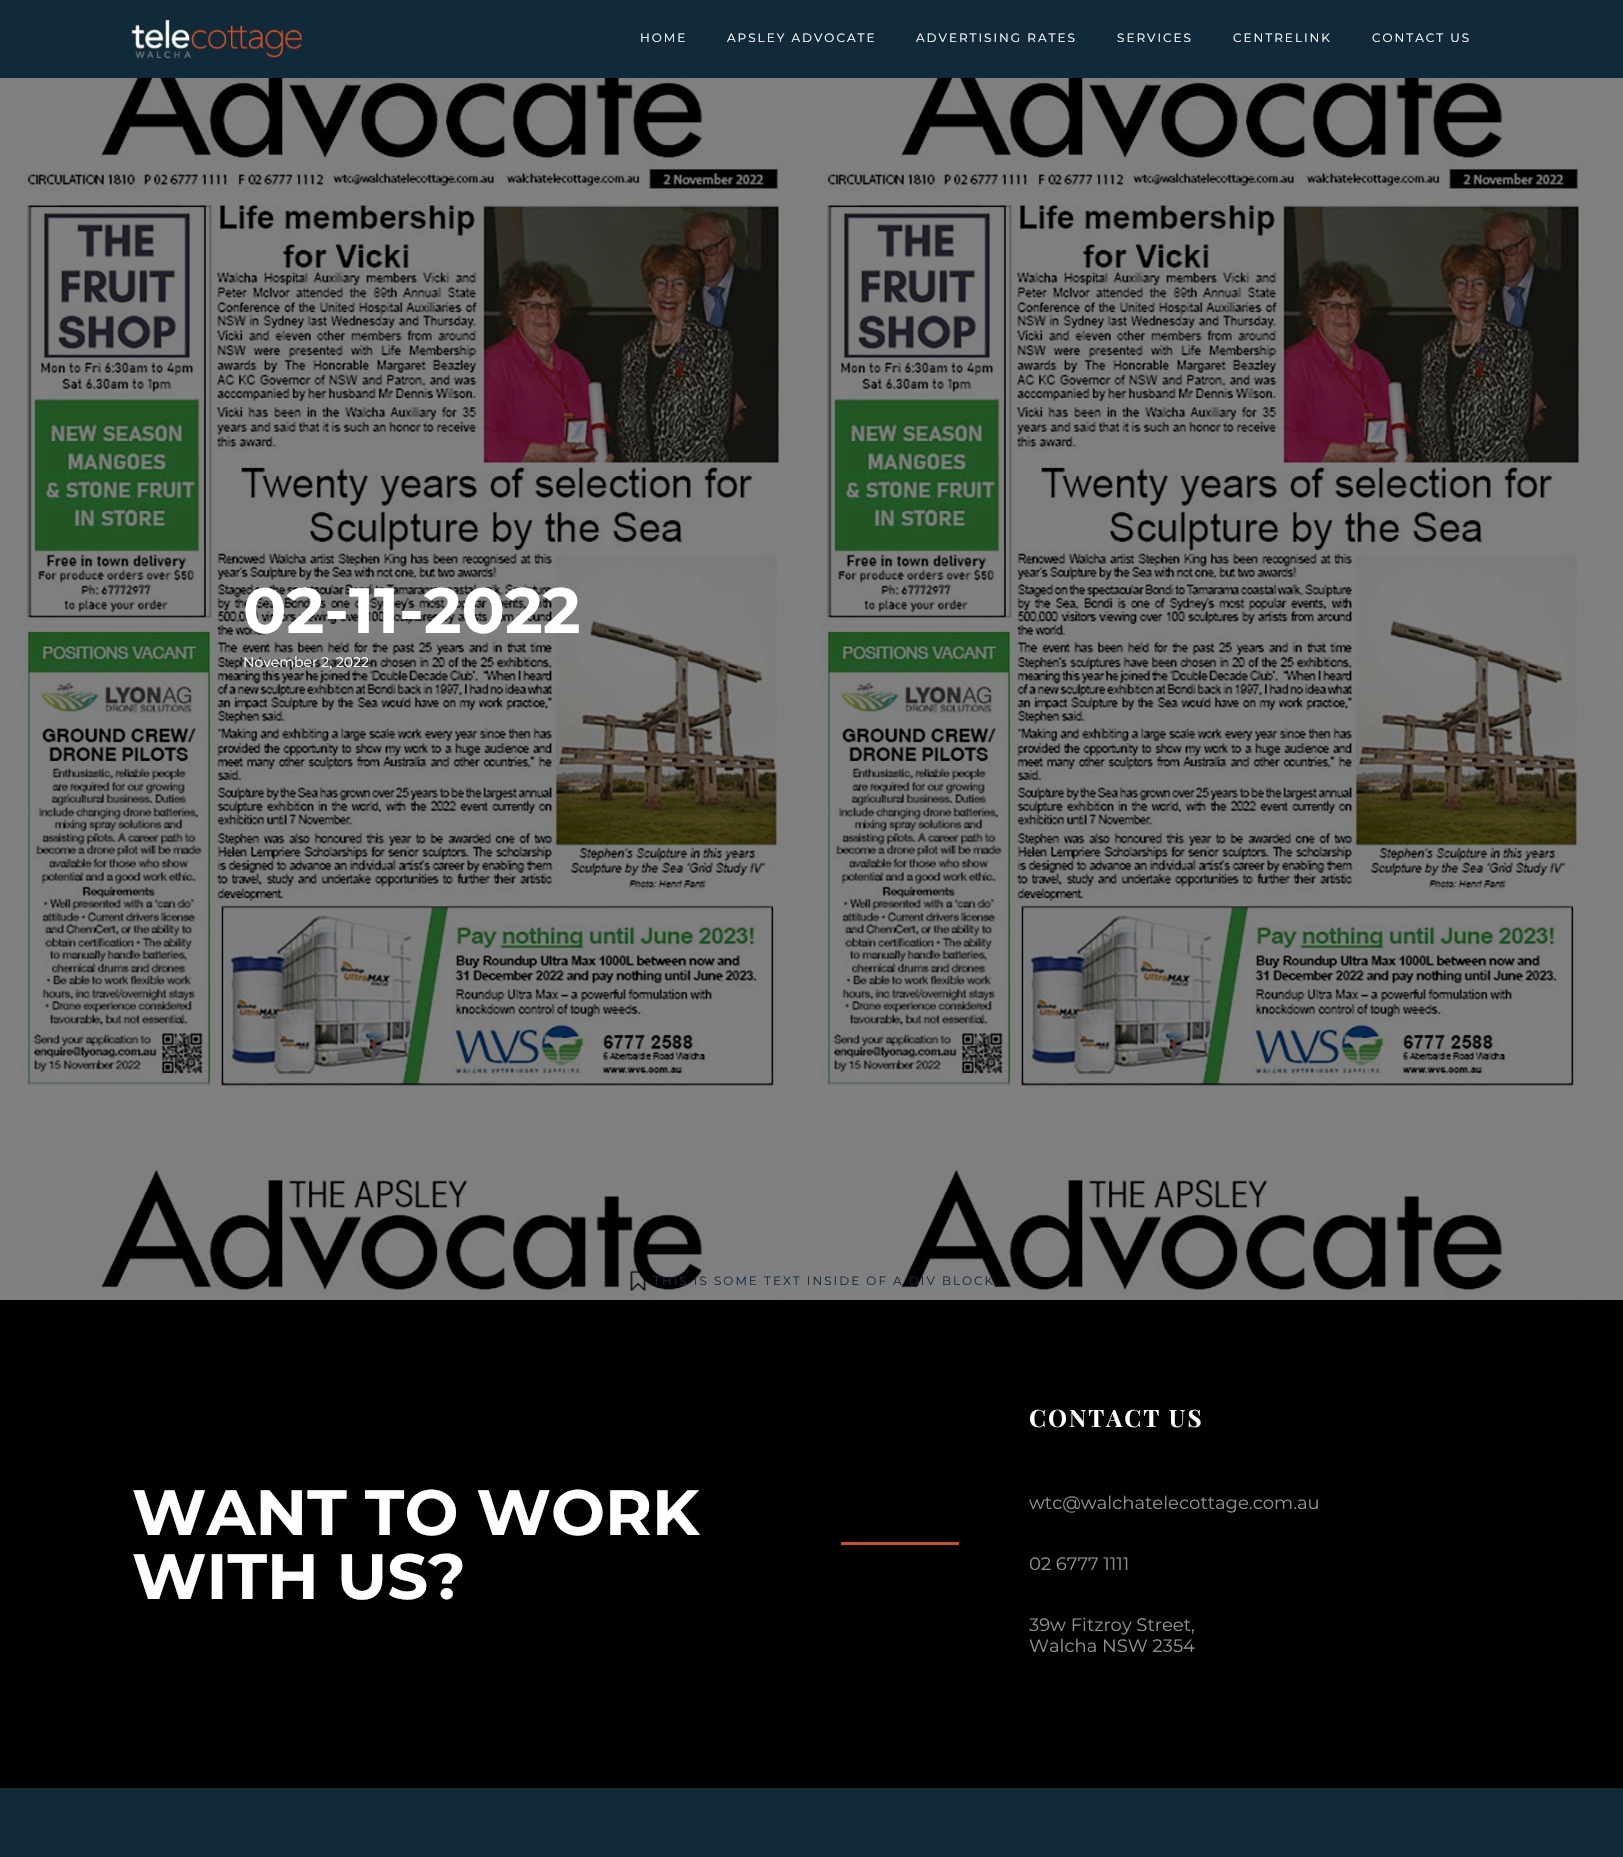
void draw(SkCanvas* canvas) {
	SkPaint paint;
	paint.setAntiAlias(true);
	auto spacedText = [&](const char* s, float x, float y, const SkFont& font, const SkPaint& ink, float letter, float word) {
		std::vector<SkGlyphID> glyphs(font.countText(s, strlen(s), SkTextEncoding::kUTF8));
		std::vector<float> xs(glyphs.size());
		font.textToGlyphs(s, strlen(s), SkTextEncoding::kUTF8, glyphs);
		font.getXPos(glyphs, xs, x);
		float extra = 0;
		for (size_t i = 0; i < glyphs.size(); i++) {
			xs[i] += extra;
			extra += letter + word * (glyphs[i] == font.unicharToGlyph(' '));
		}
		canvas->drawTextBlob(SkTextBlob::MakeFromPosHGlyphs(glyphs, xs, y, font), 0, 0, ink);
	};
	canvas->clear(0xff808080);
	paint.setColor(0xff112a3a);
	canvas->drawRect(SkRect::MakeXYWH(0, 0, 1623, 78), paint);
	canvas->drawImageRect(SkImages::DeferredFromEncodedData(SkData::MakeFromFileName("img1.png")), SkRect::MakeXYWH(131, 19, 171, 40), SkSamplingOptions());
	SkFont f1(fontMgr->matchFamilyStyle("Montserrat", SkFontStyle::Normal()), 12);
	f1.setSubpixel(true);
	paint.setColor(0xffffffff);
	spacedText("HOME", 640, 42, f1, paint, 2, 0);
	spacedText("APSLEY ADVOCATE", 727, 42, f1, paint, 2, 0);
	spacedText("ADVERTISING RATES", 916, 42, f1, paint, 2, 0);
	spacedText("SERVICES", 1117, 42, f1, paint, 2, 0);
	spacedText("CENTRELINK", 1233, 42, f1, paint, 2, 0);
	spacedText("CONTACT US", 1372, 42, f1, paint, 2, 0);
	canvas->drawImageRect(SkImages::DeferredFromEncodedData(SkData::MakeFromFileName("img2.png")), SkRect::MakeXYWH(22, 78, 1601, 1222), SkSamplingOptions());
	SkFont f2(fontMgr->matchFamilyStyle("Montserrat", SkFontStyle::Bold()), 64);
	f2.setSubpixel(true);
	canvas->drawString("02-11-2022", 243, 633, f2, paint);
	SkFont f3(fontMgr->matchFamilyStyle("Montserrat", SkFontStyle::Normal()), 14);
	f3.setSubpixel(true);
	canvas->drawString("November 2, 2022", 243, 667, f3, paint);
	canvas->drawImageRect(SkImages::DeferredFromEncodedData(SkData::MakeFromFileName("img3.png")), SkRect::MakeXYWH(630, 1270, 16, 22), SkSamplingOptions());
	paint.setColor(0xff112a3a);
	spacedText("THIS IS SOME TEXT INSIDE OF A DIV BLOCK.", 653, 1285, f1, paint, 2, 0);
	paint.setColor(0xff000000);
	canvas->drawRect(SkRect::MakeXYWH(0, 1300, 1623, 488), paint);
	paint.setColor(0xffffffff);
	canvas->drawString("WANT TO WORK", 132, 1535, f2, paint);
	canvas->drawString("WITH US?", 132, 1599, f2, paint);
	paint.setColor(0xffd14d21);
	canvas->drawRect(SkRect::MakeXYWH(841, 1542, 118, 3), paint);
	SkFont f4(fontMgr->matchFamilyStyle("Playfair Display", SkFontStyle::Bold()), 24);
	f4.setSubpixel(true);
	paint.setColor(0xffffffff);
	spacedText("CONTACT US", 1029, 1427, f4, paint, 2, 0);
	SkFont f5(fontMgr->matchFamilyStyle("Montserrat", SkFontStyle::Normal()), 18);
	f5.setSubpixel(true);
	paint.setColor(0xff919191);
	canvas->drawString("wtc@walchatelecottage.com.au", 1029, 1509, f5, paint);
	canvas->drawString("02 6777 1111", 1029, 1570, f5, paint);
	canvas->drawString("39w Fitzroy Street,", 1029, 1631, f5, paint);
	canvas->drawString("Walcha NSW 2354", 1029, 1652, f5, paint);
	paint.setColor(0xff112a3a);
	canvas->drawRect(SkRect::MakeXYWH(0, 1788, 1623, 69), paint);
}
